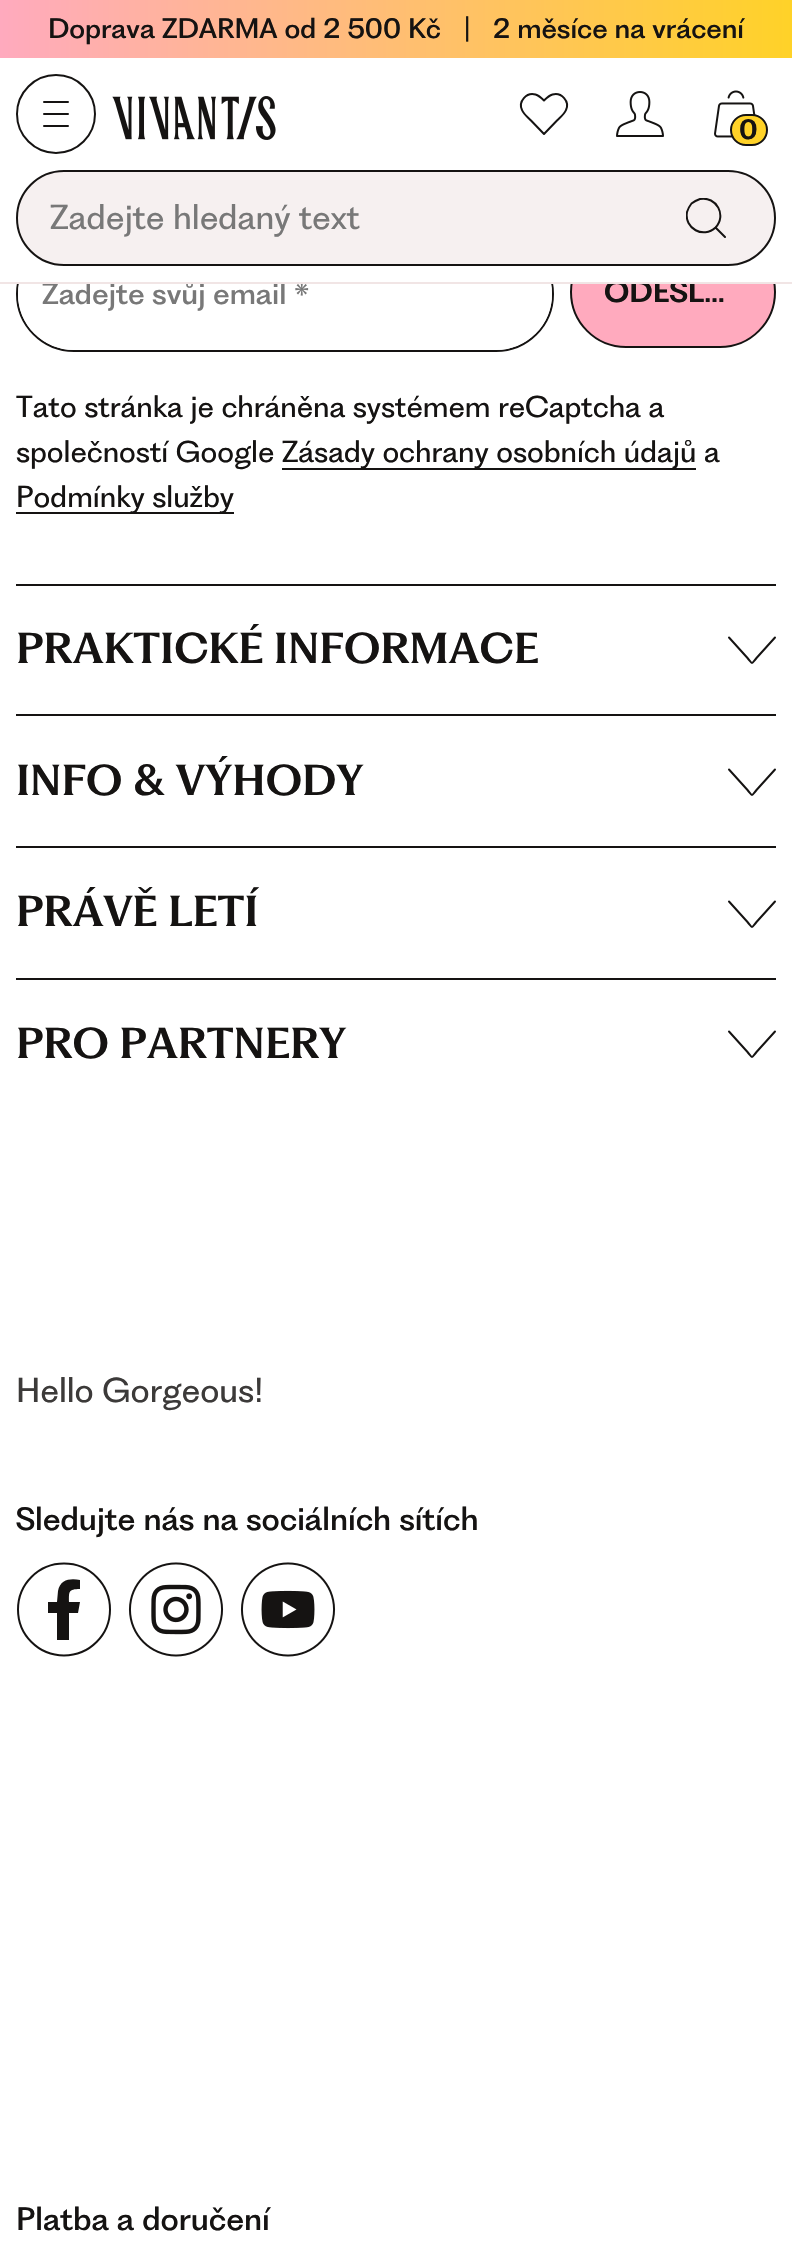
void draw(SkCanvas* canvas) {
	SkPaint paint;
	paint.setAntiAlias(true);
	auto svgPath = [&](const char* data, bool evenOdd = false) {
		SkPath result = *SkParsePath::FromSVGString(data);
		if (evenOdd) result.setFillType(SkPathFillType::kEvenOdd);
		return result;
	};
	canvas->clear(0xffffffff);
	{
		const SkColor colors[] = {0xffffaabe, 0xffffd228};
		const float stops[] = {0, 1};
		const SkPoint ends[] = {{0, 29}, {792, 29}};
		paint.setShader(SkGradientShader::MakeLinear(ends, colors, stops, 2, SkTileMode::kClamp));
		paint.setAlpha(255);
	}
	canvas->drawRect(SkRect::MakeXYWH(0, 0, 792, 58), paint);
	SkFont f1(fontMgr->matchFamilyStyle("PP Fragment", SkFontStyle(500, SkFontStyle::kNormal_Width, SkFontStyle::kUpright_Slant)), 26);
	f1.setSubpixel(true);
	paint.setShader(nullptr);
	paint.setColor(0xff151312);
	canvas->drawString("Doprava ZDARMA od 2 500 Kč", 48, 38, f1, paint);
	canvas->drawString("|", 464, 38, f1, paint);
	canvas->drawString("2 měsíce na vrácení", 493, 38, f1, paint);
	paint.setStroke(true);
	paint.setStrokeWidth(2);
	canvas->drawRoundRect(SkRect::MakeXYWH(17, 237, 536, 114), 57, 57, paint);
	paint.setStroke(false);
	paint.setColor(0xffffffff);
	canvas->drawRoundRect(SkRect::MakeXYWH(18, 238, 534, 112), 56, 56, paint);
	SkFont f2(fontMgr->matchFamilyStyle("PP Fragment", SkFontStyle(500, SkFontStyle::kNormal_Width, SkFontStyle::kUpright_Slant)), 28);
	f2.setSubpixel(true);
	paint.setColor(0xff787878);
	canvas->drawString("Zadejte svůj email *", 42, 304, f2, paint);
	paint.setColor(0xffffaabe);
	canvas->drawRoundRect(SkRect::MakeXYWH(571, 237, 204, 110), 55, 55, paint);
	paint.setStroke(true);
	paint.setColor(0xff151312);
	canvas->drawRoundRect(SkRect::MakeXYWH(571, 237, 204, 110), 55, 55, paint);
	SkFont f3(fontMgr->matchFamilyStyle("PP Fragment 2", SkFontStyle(600, SkFontStyle::kNormal_Width, SkFontStyle::kUpright_Slant)), 28);
	f3.setSubpixel(true);
	paint.setStroke(false);
	canvas->drawString("ODESL…", 604, 302, f3, paint);
	paint.setColor(0xffffffff);
	canvas->drawRect(SkRect::MakeXYWH(17, 236, 759, 46), paint);
	paint.setColor(0xfff1e5e5);
	canvas->drawRect(SkRect::MakeXYWH(0, 282, 792, 2), paint);
	paint.setStroke(true);
	paint.setColor(0xff151312);
	canvas->drawCircle(56, 114, 39, paint);
	paint.setStrokeCap(SkPaint::kRound_Cap);
	paint.setStrokeJoin(SkPaint::kRound_Join);
	canvas->drawPath(svgPath("M68 102H44M68 114H44M68 126H44"), paint);
	canvas->drawImageRect(SkImages::DeferredFromEncodedData(SkData::MakeFromFileName("img1.png")), SkRect::MakeXYWH(112, 96, 164, 44), SkSamplingOptions());
	canvas->drawPath(svgPath("M544 134L531 120.5C528 117.5 523.5 114 522 110C518 101.5 526.5 92 535.5 94.5C539 95.5 541.5 98 544 100.5C546.5 98 549 95.5 552.5 94.5C561.5 92 570 101.5 566 110C564.5 114 560 117.5 557 120.5Z"), paint);
	canvas->drawImageRect(SkImages::DeferredFromEncodedData(SkData::MakeFromFileName("img2.png")), SkRect::MakeXYWH(616, 91, 48, 46), SkSamplingOptions());
	canvas->drawImageRect(SkImages::DeferredFromEncodedData(SkData::MakeFromFileName("img3.png")), SkRect::MakeXYWH(714, 90, 42, 48), SkSamplingOptions());
	paint.setStroke(false);
	paint.setColor(0xffffd228);
	canvas->drawRoundRect(SkRect::MakeXYWH(731, 115, 36, 30), 15, 15, paint);
	paint.setStroke(true);
	paint.setStrokeCap(SkPaint::kButt_Cap);
	paint.setStrokeJoin(SkPaint::kMiter_Join);
	paint.setColor(0xff151312);
	canvas->drawRoundRect(SkRect::MakeXYWH(731, 115, 36, 30), 15, 15, paint);
	SkFont f4(fontMgr->matchFamilyStyle("PP Fragment 2", SkFontStyle(600, SkFontStyle::kNormal_Width, SkFontStyle::kUpright_Slant)), 26);
	f4.setSubpixel(true);
	paint.setStroke(false);
	canvas->drawString("0", 739, 139, f4, paint);
	paint.setColor(0xfff6f0f0);
	canvas->drawRoundRect(SkRect::MakeXYWH(17, 171, 758, 94), 47, 47, paint);
	paint.setStroke(true);
	paint.setColor(0xff151312);
	canvas->drawRoundRect(SkRect::MakeXYWH(17, 171, 758, 94), 47, 47, paint);
	SkFont f5(fontMgr->matchFamilyStyle("PP Fragment", SkFontStyle::Normal()), 32);
	f5.setSubpixel(true);
	paint.setStroke(false);
	paint.setColor(0xff787878);
	canvas->drawString("Zadejte hledaný text", 50, 229, f5, paint);
	canvas->save();
	canvas->clipRect(SkRect::MakeXYWH(686, 198, 40, 40));
	paint.setStroke(true);
	paint.setStrokeCap(SkPaint::kRound_Cap);
	paint.setStrokeJoin(SkPaint::kRound_Join);
	paint.setColor(0xff151312);
	canvas->drawPath(svgPath("M715.5 227.5C703.5 239 684 228.5 687 212C688 209 689.5 206 691.5 203.5C694 201.5 697 200 700 199C716.5 196 727 215.5 715.5 227.5ZM715.5 227.5L725 237"), paint);
	canvas->restore();
	SkFont f6(fontMgr->matchFamilyStyle("PP Fragment", SkFontStyle::Normal()), 28);
	f6.setSubpixel(true);
	paint.setStroke(false);
	canvas->drawString("Tato stránka je chráněna systémem reCaptcha a", 16, 417, f6, paint);
	canvas->drawString("společností Google", 16, 462, f6, paint);
	canvas->drawRect(SkRect::MakeXYWH(282, 468, 414, 2), paint);
	canvas->drawString("Zásady ochrany osobních údajů a", 282, 462, f6, paint);
	canvas->drawRect(SkRect::MakeXYWH(16, 512, 218, 2), paint);
	canvas->drawString("Podmínky služby", 16, 507, f6, paint);
	canvas->drawRect(SkRect::MakeXYWH(16, 584, 760, 2), paint);
	SkFont f7(fontMgr->matchFamilyStyle("PP Fragment", SkFontStyle(600, SkFontStyle::kNormal_Width, SkFontStyle::kUpright_Slant)), 40);
	f7.setSubpixel(true);
	canvas->drawString("PRAKTICKÉ INFORMACE", 16, 663, f7, paint);
	paint.setStroke(true);
	canvas->drawPath(svgPath("M729 637.5L747.5 658C753 664.5 751 664.5 756.5 658L775 637.5"), paint);
	paint.setStroke(false);
	canvas->drawRect(SkRect::MakeXYWH(16, 714, 760, 2), paint);
	canvas->drawString("INFO & VÝHODY", 16, 795, f7, paint);
	paint.setStroke(true);
	canvas->drawPath(svgPath("M729 769.5L747.5 790C753 796.5 751 796.5 756.5 790L775 769.5"), paint);
	paint.setStroke(false);
	canvas->drawRect(SkRect::MakeXYWH(16, 846, 760, 2), paint);
	canvas->drawString("PRÁVĚ LETÍ", 16, 926, f7, paint);
	paint.setStroke(true);
	canvas->drawPath(svgPath("M729 901.5L747.5 922C753 928.5 751 928.5 756.5 922L775 901.5"), paint);
	paint.setStroke(false);
	canvas->drawRect(SkRect::MakeXYWH(16, 978, 760, 2), paint);
	canvas->drawString("PRO PARTNERY", 16, 1058, f7, paint);
	paint.setStroke(true);
	canvas->drawPath(svgPath("M729 1031.5L747.5 1052C753 1058.5 751 1058.5 756.5 1052L775 1031.5"), paint);
	paint.setStroke(false);
	paint.setColor(0xff3c3a39);
	canvas->drawString("Hello Gorgeous!", 16, 1402, f5, paint);
	SkFont f8(fontMgr->matchFamilyStyle("PP Fragment", SkFontStyle(500, SkFontStyle::kNormal_Width, SkFontStyle::kUpright_Slant)), 30);
	f8.setSubpixel(true);
	paint.setColor(0xff151312);
	canvas->drawString("Sledujte nás na sociálních sítích", 16, 1530, f8, paint);
	paint.setStroke(true);
	paint.setStrokeCap(SkPaint::kButt_Cap);
	paint.setStrokeJoin(SkPaint::kMiter_Join);
	canvas->drawPath(svgPath("M64 1563.5C89.5 1563.5 110 1584 110 1609.5C110 1635 89.5 1655.5 64 1655.5C38.5 1655.5 18 1635 18 1609.5C18 1584 38.5 1563.5 64 1563.5Z"), paint);
	paint.setStroke(false);
	canvas->drawPath(svgPath("M78 1613L80 1602H69C69 1592 68 1589 80 1589V1580C71 1578 60 1579 58 1591L57 1602H48V1613H57V1640H69V1613Z"), paint);
	canvas->drawImageRect(SkImages::DeferredFromEncodedData(SkData::MakeFromFileName("img4.png")), SkRect::MakeXYWH(128, 1562, 96, 95), SkSamplingOptions());
	canvas->drawImageRect(SkImages::DeferredFromEncodedData(SkData::MakeFromFileName("img5.png")), SkRect::MakeXYWH(240, 1562, 96, 95), SkSamplingOptions());
	canvas->drawString("Platba a doručení", 16, 2230, f8, paint);
}
